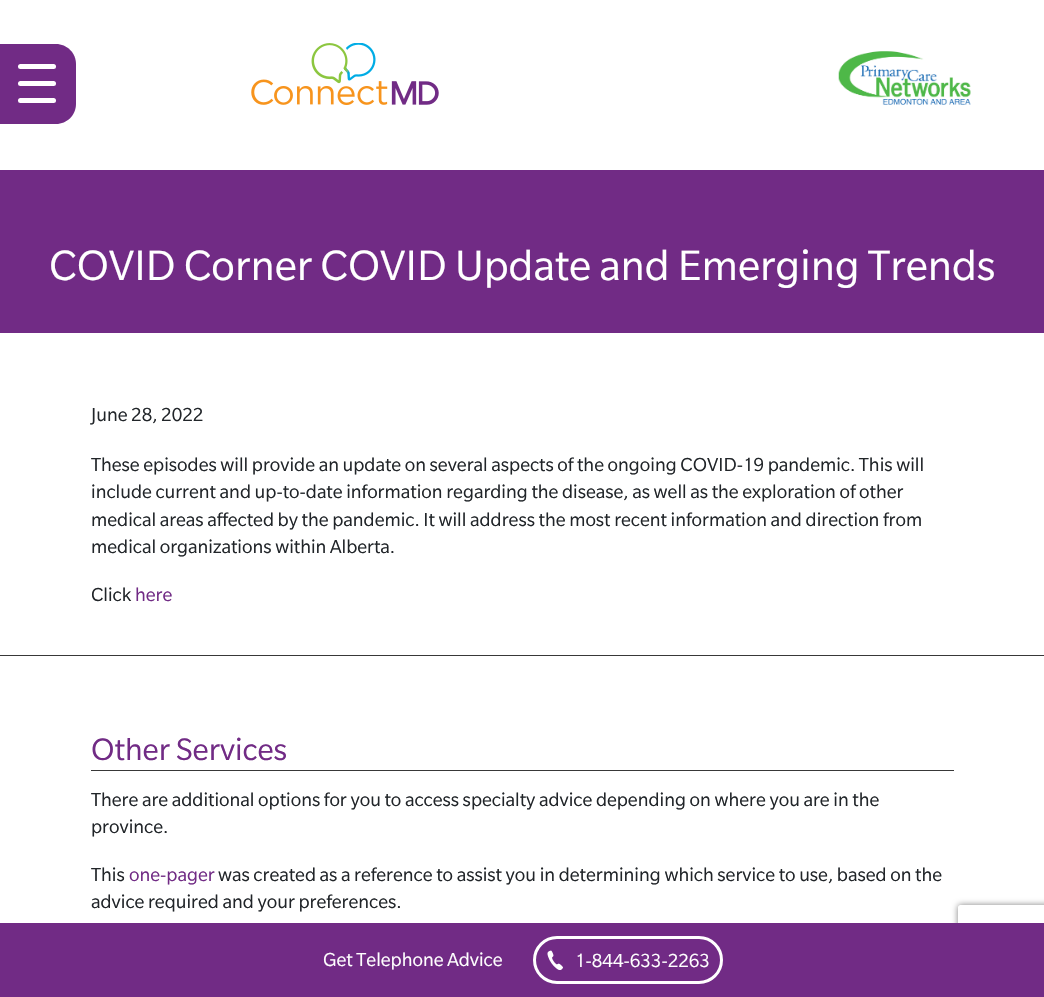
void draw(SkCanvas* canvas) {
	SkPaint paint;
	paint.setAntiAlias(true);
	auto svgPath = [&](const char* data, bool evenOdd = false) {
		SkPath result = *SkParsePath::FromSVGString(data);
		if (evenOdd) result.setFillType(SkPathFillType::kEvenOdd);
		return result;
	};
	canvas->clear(0xffffffff);
	canvas->drawImageRect(SkImages::DeferredFromEncodedData(SkData::MakeFromFileName("img1.png")), SkRect::MakeXYWH(251, 43, 188, 62), SkSamplingOptions());
	canvas->drawImageRect(SkImages::DeferredFromEncodedData(SkData::MakeFromFileName("img2.png")), SkRect::MakeXYWH(838, 51, 133, 54), SkSamplingOptions());
	paint.setColor(0xff712b85);
	canvas->drawRect(SkRect::MakeXYWH(0, 170, 1044, 163), paint);
	SkFont f1(fontMgr->matchFamilyStyle("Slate", SkFontStyle::Normal()), 46.25);
	f1.setSubpixel(true);
	paint.setColor(0xffffffff);
	canvas->drawString("COVID Corner COVID Update and Emerging Trends", 49, 280, f1, paint);
	SkFont f2(fontMgr->matchFamilyStyle("Slate", SkFontStyle::Normal()), 20.6);
	f2.setSubpixel(true);
	paint.setColor(0xff212529);
	canvas->drawString("June 28, 2022", 91, 421, f2, paint);
	canvas->drawString("These episodes will provide an update on several aspects of the ongoing COVID-19 pandemic. This will", 91, 471, f2, paint);
	canvas->drawString("include current and up-to-date information regarding the disease, as well as the exploration of other", 91, 498, f2, paint);
	canvas->drawString("medical areas affected by the pandemic. It will address the most recent information and direction from", 91, 526, f2, paint);
	canvas->drawString("medical organizations within Alberta.", 91, 553, f2, paint);
	canvas->drawString("Click", 91, 601, f2, paint);
	paint.setColor(0xff712b85);
	canvas->drawString("here", 135, 601, f2, paint);
	paint.setColor(0xff383838);
	canvas->drawRect(SkRect::MakeXYWH(0, 655, 1044, 1), paint);
	canvas->drawRect(SkRect::MakeXYWH(91, 770, 863, 1), paint);
	SkFont f3(fontMgr->matchFamilyStyle("Slate", SkFontStyle::Normal()), 33.75);
	f3.setSubpixel(true);
	paint.setColor(0xff712b85);
	canvas->drawString("Other Services", 91, 760, f3, paint);
	paint.setColor(0xff212529);
	canvas->drawString("There are additional options for you to access specialty advice depending on where you are in the", 91, 806, f2, paint);
	canvas->drawString("province.", 91, 833, f2, paint);
	canvas->drawString("This", 91, 881, f2, paint);
	paint.setColor(0xff712b85);
	canvas->drawString("one-pager", 129, 881, f2, paint);
	paint.setColor(0xff212529);
	canvas->drawString("was created as a reference to assist you in determining which service to use, based on the", 218, 881, f2, paint);
	canvas->drawString("advice required and your preferences.", 91, 908, f2, paint);
	paint.setColor(0xff712b85);
	canvas->drawPath(svgPath("M0 44H56C67 44 76 53 76 64V104C76 115 67 124 56 124H0Z"), paint);
	paint.setColor(0xffffffff);
	canvas->drawRoundRect(SkRect::MakeXYWH(18, 64, 38, 5), 2.5, 2.5, paint);
	canvas->drawRoundRect(SkRect::MakeXYWH(18, 81, 38, 5), 2.5, 2.5, paint);
	canvas->drawRoundRect(SkRect::MakeXYWH(18, 98, 38, 5), 2.5, 2.5, paint);
	canvas->save();
	canvas->clipPath(svgPath("M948 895H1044V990H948ZM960.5 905H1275.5C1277 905 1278 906 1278 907.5V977.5C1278 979 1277 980 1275.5 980H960.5C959 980 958 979 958 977.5V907.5C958 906 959 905 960.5 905Z", true), true);
	paint.setColor(0xff808080);
	paint.setMaskFilter(SkMaskFilter::MakeBlur(kNormal_SkBlurStyle, 3));
	canvas->drawRoundRect(SkRect::MakeXYWH(958, 905, 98, 75), 2.5, 2.5, paint);
	paint.setMaskFilter(nullptr);
	canvas->restore();
	paint.setColor(0xff712b85);
	canvas->drawRect(SkRect::MakeXYWH(0, 923, 1044, 74), paint);
	paint.setColor(0xffffffff);
	canvas->drawString("Get Telephone Advice", 323, 966, f2, paint);
	paint.setStroke(true);
	paint.setStrokeWidth(3);
	canvas->drawRoundRect(SkRect::MakeXYWH(534.5, 937.5, 187, 45), 22.5, 22.5, paint);
	canvas->drawImageRect(SkImages::DeferredFromEncodedData(SkData::MakeFromFileName("img3.png")), SkRect::MakeXYWH(547, 950, 16, 20), SkSamplingOptions());
	paint.setStroke(false);
	canvas->drawString("1-844-633-2263", 575, 967, f2, paint);
}
